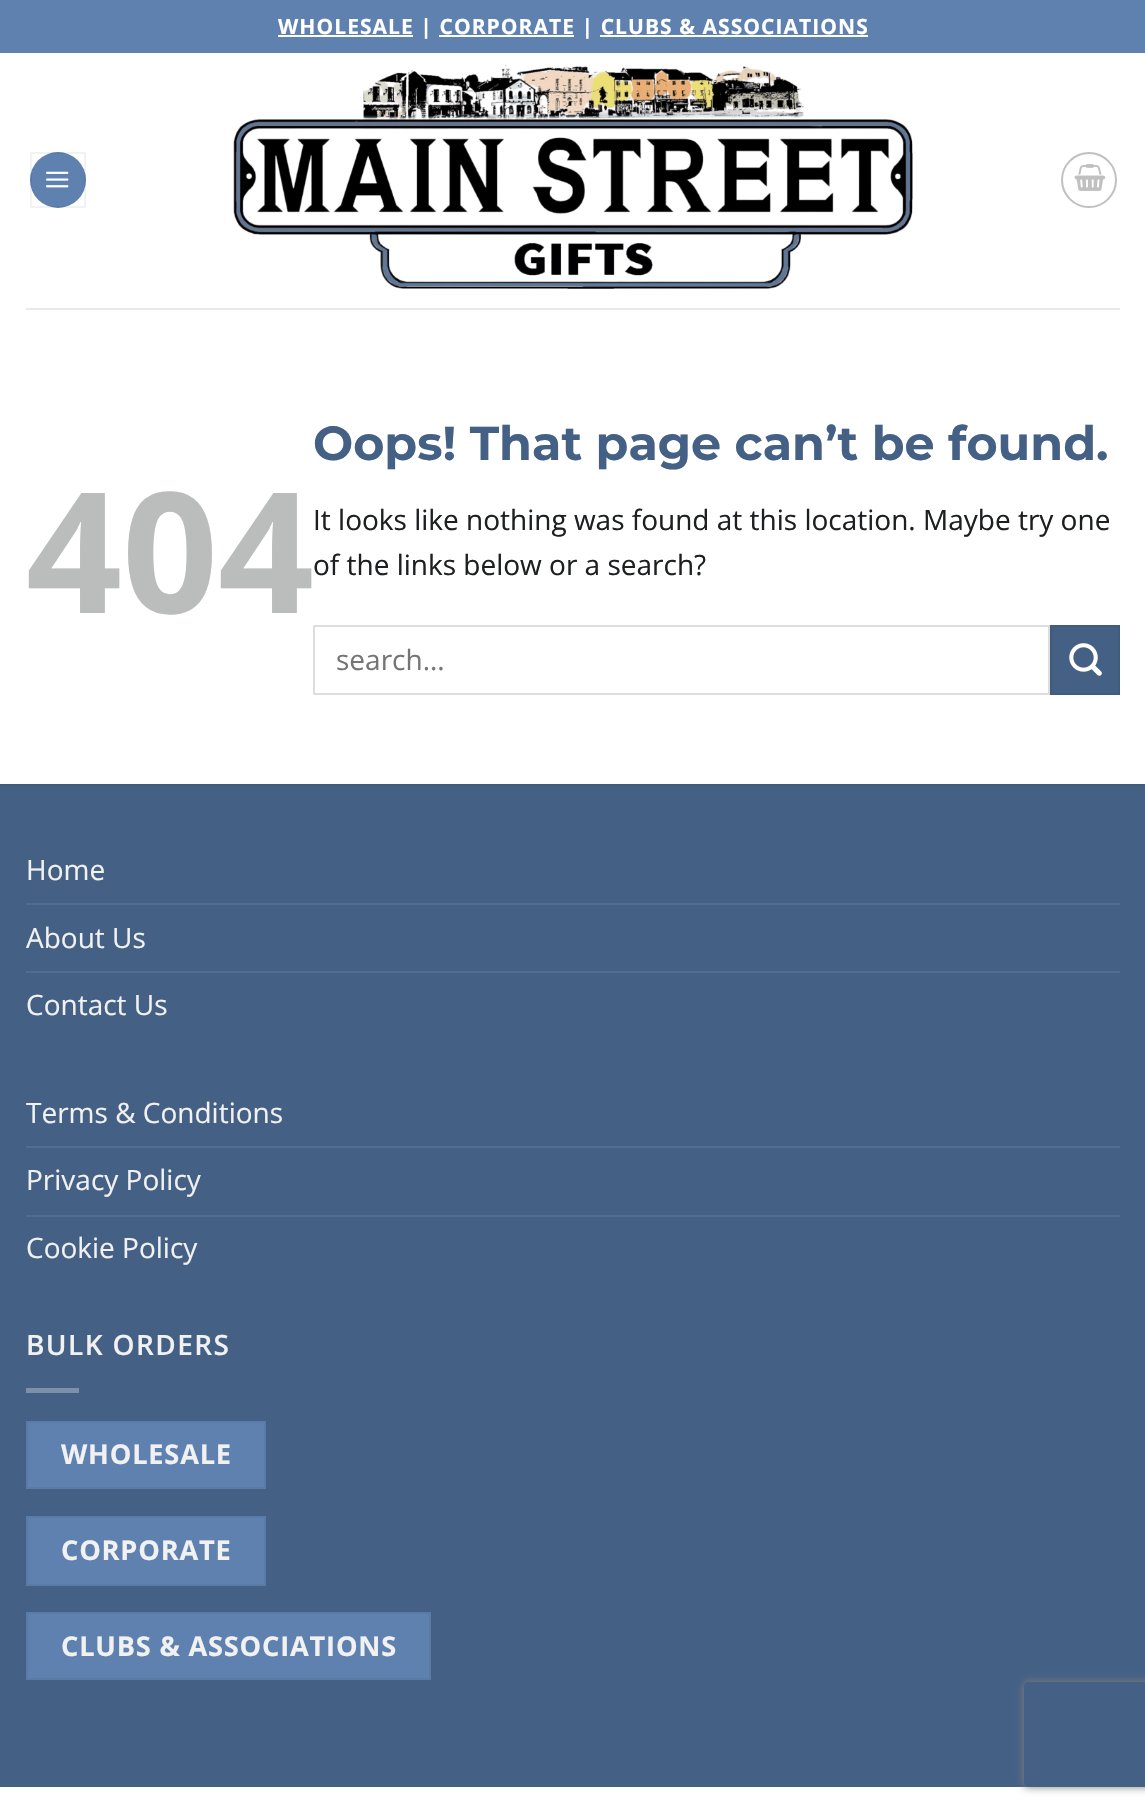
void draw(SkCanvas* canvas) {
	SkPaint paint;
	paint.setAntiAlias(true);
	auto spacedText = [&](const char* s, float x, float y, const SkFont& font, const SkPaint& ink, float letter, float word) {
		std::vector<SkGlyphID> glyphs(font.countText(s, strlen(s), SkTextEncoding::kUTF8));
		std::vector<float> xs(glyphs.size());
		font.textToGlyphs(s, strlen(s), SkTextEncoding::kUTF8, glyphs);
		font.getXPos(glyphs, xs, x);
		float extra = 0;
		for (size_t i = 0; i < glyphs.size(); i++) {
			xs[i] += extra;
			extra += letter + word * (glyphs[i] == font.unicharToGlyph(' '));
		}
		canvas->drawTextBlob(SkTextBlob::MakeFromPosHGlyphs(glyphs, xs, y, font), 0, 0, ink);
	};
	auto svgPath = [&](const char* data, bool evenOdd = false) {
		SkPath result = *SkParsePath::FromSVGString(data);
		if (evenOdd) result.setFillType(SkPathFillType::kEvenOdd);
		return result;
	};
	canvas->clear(0xffffffff);
	paint.setColor(0xff5e81af);
	canvas->drawRect(SkRect::MakeXYWH(0, 0, 1145, 53), paint);
	paint.setColor(0xffffffff);
	canvas->drawRect(SkRect::MakeXYWH(278, 35, 135, 2), paint);
	SkFont f1(fontMgr->matchFamilyStyle("Open Sans", SkFontStyle::Bold()), 21);
	f1.setSubpixel(true);
	spacedText("WHOLESALE | CORPORATE | CLUBS & ASSOCIATIONS", 278, 34, f1, paint, 1.05, 0);
	canvas->drawRect(SkRect::MakeXYWH(439, 35, 135, 2), paint);
	canvas->drawRect(SkRect::MakeXYWH(600, 35, 268, 2), paint);
	paint.setColor(0xff5e81af);
	canvas->drawCircle(58, 180, 28, paint);
	paint.setStroke(true);
	paint.setStrokeWidth(2);
	paint.setColor(0x0d000000);
	canvas->drawRect(SkRect::MakeXYWH(31, 153, 54, 54), paint);
	canvas->drawImageRect(SkImages::DeferredFromEncodedData(SkData::MakeFromFileName("img1.png")), SkRect::MakeXYWH(46, 171, 23, 17), SkSamplingOptions());
	canvas->drawImageRect(SkImages::DeferredFromEncodedData(SkData::MakeFromFileName("img2.png")), SkRect::MakeXYWH(233, 64, 680, 225), SkSamplingOptions());
	paint.setColor(0xffc0c0c0);
	canvas->drawCircle(1089, 180, 27, paint);
	canvas->drawImageRect(SkImages::DeferredFromEncodedData(SkData::MakeFromFileName("img3.png")), SkRect::MakeXYWH(1074, 164, 32, 27), SkSamplingOptions());
	paint.setStroke(false);
	paint.setColor(0xffe8e9e9);
	canvas->drawRect(SkRect::MakeXYWH(26, 308, 1094, 2), paint);
	SkFont f2(fontMgr->matchFamilyStyle("Open Sans", SkFontStyle::Bold()), 168);
	f2.setSubpixel(true);
	paint.setColor(0xffbbbcbc);
	canvas->drawString("404", 26, 613, f2, paint);
	SkFont f3(fontMgr->matchFamilyStyle("Montserrat", SkFontStyle::Bold()), 47.6);
	f3.setSubpixel(true);
	paint.setColor(0xff446084);
	canvas->drawString("Oops! That page can’t be found.", 313, 460, f3, paint);
	SkFont f4(fontMgr->matchFamilyStyle("Open Sans", SkFontStyle::Normal()), 28);
	f4.setSubpixel(true);
	paint.setColor(0xff1d1f20);
	canvas->drawString("It looks like nothing was found at this location. Maybe try one", 313, 530, f4, paint);
	canvas->drawString("of the links below or a search?", 313, 575, f4, paint);
	paint.setStroke(true);
	paint.setColor(0xffdddddd);
	canvas->drawRect(SkRect::MakeXYWH(314, 626, 735, 68), paint);
	paint.setStroke(false);
	paint.setColor(0xff757575);
	canvas->drawString("search...", 336, 670, f4, paint);
	paint.setColor(0xff446084);
	canvas->drawRect(SkRect::MakeXYWH(1051, 626, 68, 68), paint);
	paint.setStroke(true);
	paint.setColor(0xff415b7d);
	canvas->drawRect(SkRect::MakeXYWH(1051, 626, 68, 68), paint);
	canvas->drawImageRect(SkImages::DeferredFromEncodedData(SkData::MakeFromFileName("img4.png")), SkRect::MakeXYWH(1069, 643, 33, 33), SkSamplingOptions());
	paint.setStroke(false);
	paint.setColor(0xff446084);
	canvas->drawRect(SkRect::MakeXYWH(0, 786, 1145, 1001), paint);
	paint.setColor(0xff415b7d);
	canvas->drawRect(SkRect::MakeXYWH(0, 784, 1145, 2), paint);
	paint.setColor(0xfff1f1f1);
	canvas->drawString("Home", 26, 880, f4, paint);
	paint.setColor(0xff536d8e);
	canvas->drawRect(SkRect::MakeXYWH(26, 903, 1094, 2), paint);
	paint.setColor(0xfff1f1f1);
	canvas->drawString("About Us", 26, 948, f4, paint);
	paint.setColor(0xff536d8e);
	canvas->drawRect(SkRect::MakeXYWH(26, 971, 1094, 2), paint);
	paint.setColor(0xfff1f1f1);
	canvas->drawString("Contact Us", 26, 1015, f4, paint);
	canvas->drawString("Terms & Conditions", 26, 1123, f4, paint);
	paint.setColor(0xff536d8e);
	canvas->drawRect(SkRect::MakeXYWH(26, 1146, 1094, 2), paint);
	paint.setColor(0xfff1f1f1);
	canvas->drawString("Privacy Policy", 26, 1190, f4, paint);
	paint.setColor(0xff536d8e);
	canvas->drawRect(SkRect::MakeXYWH(26, 1215, 1094, 2), paint);
	paint.setColor(0xfff1f1f1);
	canvas->drawString("Cookie Policy", 26, 1258, f4, paint);
	SkFont f5(fontMgr->matchFamilyStyle("Open Sans", SkFontStyle(600, SkFontStyle::kNormal_Width, SkFontStyle::kUpright_Slant)), 28);
	f5.setSubpixel(true);
	spacedText("BULK ORDERS", 26, 1355, f5, paint, 1.4, 0);
	paint.setColor(0xff7c90a9);
	canvas->drawRect(SkRect::MakeXYWH(26, 1388, 53, 5), paint);
	paint.setColor(0xff5e81af);
	canvas->drawRect(SkRect::MakeXYWH(27, 1422, 238, 66), paint);
	paint.setStroke(true);
	paint.setColor(0xff597ba6);
	canvas->drawRect(SkRect::MakeXYWH(27, 1422, 238, 66), paint);
	SkFont f6(fontMgr->matchFamilyStyle("Open Sans", SkFontStyle::Bold()), 27.2);
	f6.setSubpixel(true);
	paint.setStroke(false);
	paint.setColor(0xfff1f1f1);
	spacedText("WHOLESALE", 61, 1464, f6, paint, 0.8, 0);
	paint.setColor(0xff5e81af);
	canvas->drawRect(SkRect::MakeXYWH(27, 1517, 238, 68), paint);
	paint.setStroke(true);
	paint.setColor(0xff597ba6);
	canvas->drawRect(SkRect::MakeXYWH(27, 1517, 238, 68), paint);
	paint.setStroke(false);
	paint.setColor(0xfff1f1f1);
	spacedText("CORPORATE", 61, 1560, f6, paint, 0.8, 0);
	paint.setColor(0xff5e81af);
	canvas->drawRect(SkRect::MakeXYWH(27, 1613, 403, 66), paint);
	paint.setStroke(true);
	paint.setColor(0xff597ba6);
	canvas->drawRect(SkRect::MakeXYWH(27, 1613, 403, 66), paint);
	paint.setStroke(false);
	paint.setColor(0xfff1f1f1);
	spacedText("CLUBS & ASSOCIATIONS", 61, 1656, f6, paint, 0.8, 0);
	canvas->save();
	canvas->clipPath(svgPath("M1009 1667H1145V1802H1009ZM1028 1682H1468C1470 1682 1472 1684 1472 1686V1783C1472 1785 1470 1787 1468 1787H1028C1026 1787 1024 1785 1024 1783V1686C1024 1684 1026 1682 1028 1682Z", true), true);
	paint.setColor(0xff808080);
	paint.setMaskFilter(SkMaskFilter::MakeBlur(kNormal_SkBlurStyle, 4.5));
	canvas->drawRoundRect(SkRect::MakeXYWH(1024, 1682, 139, 105), 4, 4, paint);
	paint.setMaskFilter(nullptr);
	canvas->restore();
}
